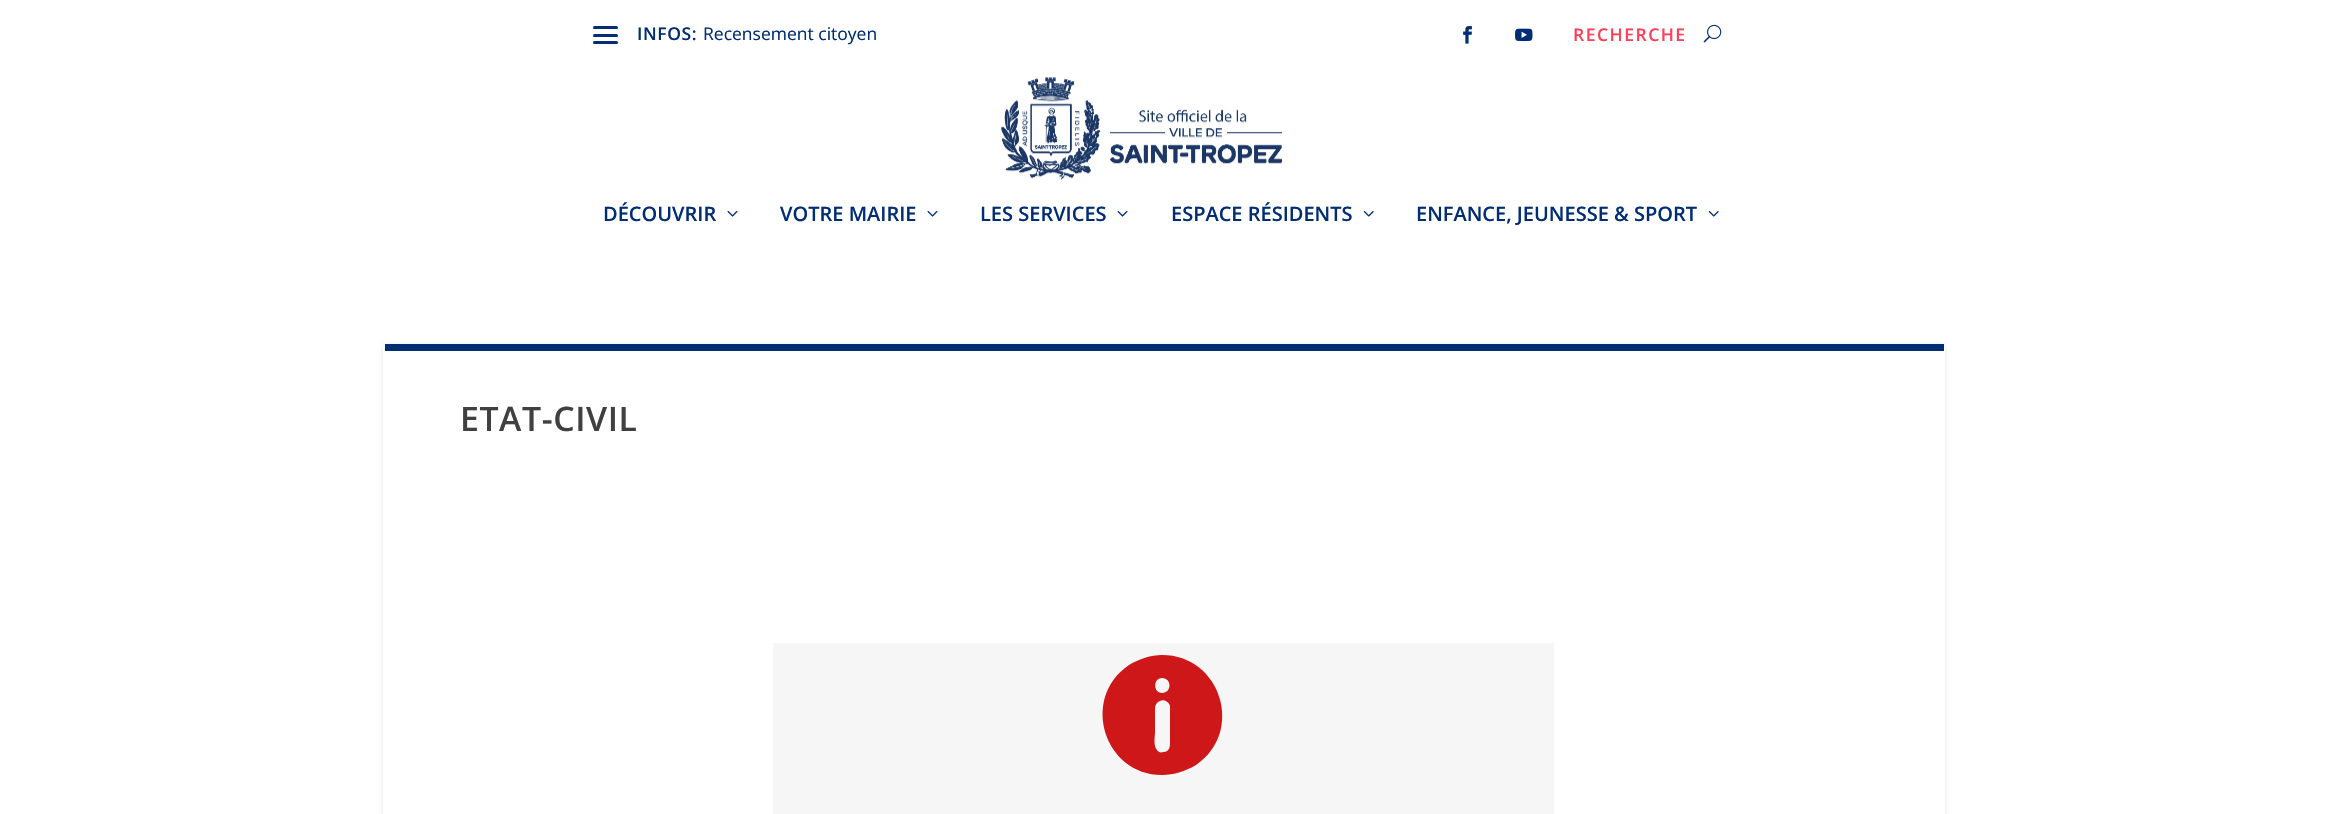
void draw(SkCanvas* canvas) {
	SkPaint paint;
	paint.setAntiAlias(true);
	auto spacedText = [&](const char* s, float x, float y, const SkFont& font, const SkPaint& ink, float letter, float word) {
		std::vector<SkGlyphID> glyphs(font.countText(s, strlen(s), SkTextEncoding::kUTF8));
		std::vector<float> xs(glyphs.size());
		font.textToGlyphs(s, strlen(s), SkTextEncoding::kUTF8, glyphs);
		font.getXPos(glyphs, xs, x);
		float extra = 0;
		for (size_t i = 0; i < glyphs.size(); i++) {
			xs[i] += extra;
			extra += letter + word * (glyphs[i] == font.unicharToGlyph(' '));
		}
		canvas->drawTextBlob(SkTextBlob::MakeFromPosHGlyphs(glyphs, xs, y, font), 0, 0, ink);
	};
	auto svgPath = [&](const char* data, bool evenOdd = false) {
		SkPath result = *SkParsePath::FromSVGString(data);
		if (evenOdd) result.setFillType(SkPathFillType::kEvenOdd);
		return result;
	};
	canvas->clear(0xffffffff);
	paint.setColor(0xff002d74);
	canvas->drawRoundRect(SkRect::MakeXYWH(593, 26, 25, 3), 1.5, 1.5, paint);
	canvas->drawRoundRect(SkRect::MakeXYWH(593, 34, 25, 3), 1.5, 1.5, paint);
	canvas->drawRoundRect(SkRect::MakeXYWH(593, 41, 25, 3), 1.5, 1.5, paint);
	SkFont f1(fontMgr->matchFamilyStyle("Open Sans", SkFontStyle(600, SkFontStyle::kNormal_Width, SkFontStyle::kUpright_Slant)), 17.5);
	f1.setSubpixel(true);
	spacedText("INFOS:", 637, 40, f1, paint, 0.6, 0);
	SkFont f2(fontMgr->matchFamilyStyle("Open Sans", SkFontStyle::Normal()), 17.5);
	f2.setSubpixel(true);
	canvas->drawString("Recensement citoyen", 703, 40, f2, paint);
	canvas->drawImageRect(SkImages::DeferredFromEncodedData(SkData::MakeFromFileName("img1.png")), SkRect::MakeXYWH(1463, 26, 9, 18), SkSamplingOptions());
	canvas->drawImageRect(SkImages::DeferredFromEncodedData(SkData::MakeFromFileName("img2.png")), SkRect::MakeXYWH(1515, 28, 18, 14), SkSamplingOptions());
	paint.setColor(0xfffe3f59);
	spacedText("RECHERCHE", 1573, 41, f1, paint, 1.5, 0);
	canvas->drawImageRect(SkImages::DeferredFromEncodedData(SkData::MakeFromFileName("img3.png")), SkRect::MakeXYWH(1703, 24, 19, 19), SkSamplingOptions());
	canvas->drawImageRect(SkImages::DeferredFromEncodedData(SkData::MakeFromFileName("img4.png")), SkRect::MakeXYWH(1001, 77, 282, 103), SkSamplingOptions());
	SkFont f3(fontMgr->matchFamilyStyle("Open Sans", SkFontStyle(600, SkFontStyle::kNormal_Width, SkFontStyle::kUpright_Slant)), 20);
	f3.setSubpixel(true);
	paint.setColor(0xff002d74);
	canvas->drawString("DÉCOUVRIR", 603, 221, f3, paint);
	canvas->drawImageRect(SkImages::DeferredFromEncodedData(SkData::MakeFromFileName("img5.png")), SkRect::MakeXYWH(727, 211, 11, 6), SkSamplingOptions());
	canvas->drawString("VOTRE MAIRIE", 780, 221, f3, paint);
	canvas->drawImageRect(SkImages::DeferredFromEncodedData(SkData::MakeFromFileName("img5.png")), SkRect::MakeXYWH(927, 211, 11, 6), SkSamplingOptions());
	canvas->drawString("LES SERVICES", 980, 221, f3, paint);
	canvas->drawImageRect(SkImages::DeferredFromEncodedData(SkData::MakeFromFileName("img5.png")), SkRect::MakeXYWH(1117, 211, 11, 6), SkSamplingOptions());
	canvas->drawString("ESPACE RÉSIDENTS", 1171, 221, f3, paint);
	canvas->drawImageRect(SkImages::DeferredFromEncodedData(SkData::MakeFromFileName("img6.png")), SkRect::MakeXYWH(1363, 211, 11, 6), SkSamplingOptions());
	canvas->drawString("ENFANCE, JEUNESSE & SPORT", 1416, 221, f3, paint);
	canvas->drawImageRect(SkImages::DeferredFromEncodedData(SkData::MakeFromFileName("img6.png")), SkRect::MakeXYWH(1708, 211, 11, 6), SkSamplingOptions());
	canvas->save();
	canvas->clipPath(svgPath("M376 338H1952V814H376ZM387 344H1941C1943 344 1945 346 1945 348V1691C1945 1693 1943 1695 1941 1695H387C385 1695 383 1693 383 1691V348C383 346 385 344 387 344Z", true), true);
	paint.setColor(0x1a000000);
	paint.setMaskFilter(SkMaskFilter::MakeBlur(kNormal_SkBlurStyle, 2));
	canvas->drawRoundRect(SkRect::MakeXYWH(383, 345, 1562, 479), 4, 4, paint);
	paint.setMaskFilter(nullptr);
	canvas->restore();
	paint.setColor(0xff002d74);
	canvas->drawRect(SkRect::MakeXYWH(385, 344, 1559, 7), paint);
	SkFont f4(fontMgr->matchFamilyStyle("Open Sans", SkFontStyle(600, SkFontStyle::kNormal_Width, SkFontStyle::kUpright_Slant)), 33.75);
	f4.setSubpixel(true);
	paint.setColor(0xff404040);
	spacedText("ETAT-CIVIL", 460, 431, f4, paint, 0.6, 0);
	paint.setColor(0xfff6f6f6);
	canvas->drawRect(SkRect::MakeXYWH(773, 643, 781, 171), paint);
	paint.setColor(0xffcd1719);
	canvas->drawPath(svgPath("M1162 655C1151 655 1139 659 1129 665C1080 698 1104 775 1162 775C1174 775 1186 771 1196 765C1245 732 1221 655 1162 655ZM1155 708C1155 705 1157 702 1160 701C1164 699 1169 702 1170 706V739C1170 744 1171 752 1163 752C1161 753 1158 752 1157 750C1153 746 1155 737 1155 732ZM1162 693C1153 693 1153 678 1162 678C1172 678 1172 693 1162 693Z"), paint);
}
